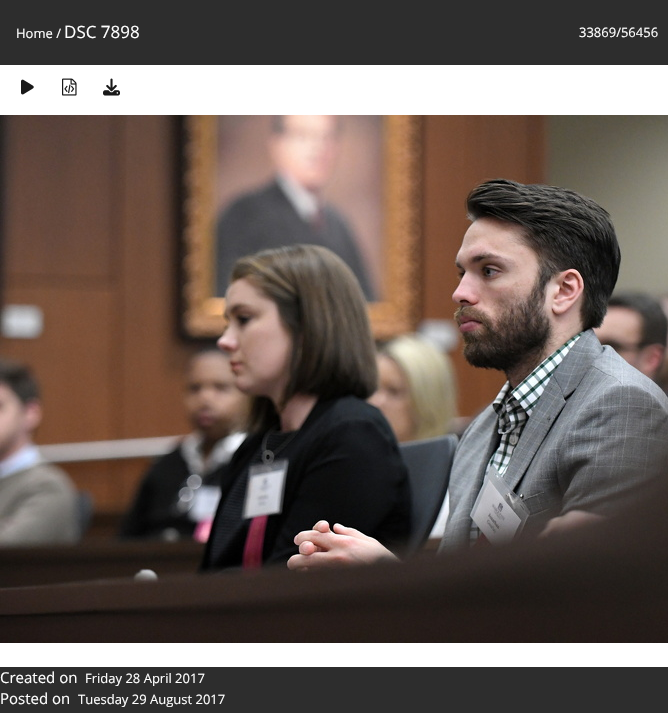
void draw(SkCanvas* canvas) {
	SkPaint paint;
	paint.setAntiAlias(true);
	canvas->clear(0xffffffff);
	paint.setColor(0xff2d2d2d);
	canvas->drawRect(SkRect::MakeXYWH(0, 0, 668, 65), paint);
	SkFont f1(fontMgr->matchFamilyStyle("Open Sans", SkFontStyle::Normal()), 13);
	f1.setSubpixel(true);
	paint.setColor(0xffffffff);
	canvas->drawString("Home /", 16, 38, f1, paint);
	SkFont f2(fontMgr->matchFamilyStyle("Open Sans", SkFontStyle::Normal()), 17);
	f2.setSubpixel(true);
	canvas->drawString("DSC 7898", 64, 38, f2, paint);
	canvas->drawString("33869/56456", 579, 37, f1, paint);
	canvas->drawImageRect(SkImages::DeferredFromEncodedData(SkData::MakeFromFileName("img1.png")), SkRect::MakeXYWH(21, 79, 13, 16), SkSamplingOptions());
	canvas->drawImageRect(SkImages::DeferredFromEncodedData(SkData::MakeFromFileName("img2.png")), SkRect::MakeXYWH(62, 78, 15, 18), SkSamplingOptions());
	canvas->drawImageRect(SkImages::DeferredFromEncodedData(SkData::MakeFromFileName("img3.png")), SkRect::MakeXYWH(103, 78, 17, 18), SkSamplingOptions());
	canvas->drawImageRect(SkImages::DeferredFromEncodedData(SkData::MakeFromFileName("img4.png")), SkRect::MakeXYWH(0, 115, 668, 528), SkSamplingOptions());
	paint.setColor(0xff2d2d2d);
	canvas->drawRect(SkRect::MakeXYWH(0, 667, 668, 46), paint);
	SkFont f3(fontMgr->matchFamilyStyle("Open Sans", SkFontStyle::Normal()), 15);
	f3.setSubpixel(true);
	paint.setColor(0xffffffff);
	canvas->drawString("Created on", 0, 683, f3, paint);
	canvas->drawString("Friday 28 April 2017", 85, 683, f1, paint);
	canvas->drawString("Posted on", 0, 704, f3, paint);
	canvas->drawString("Tuesday 29 August 2017", 78, 704, f1, paint);
}
